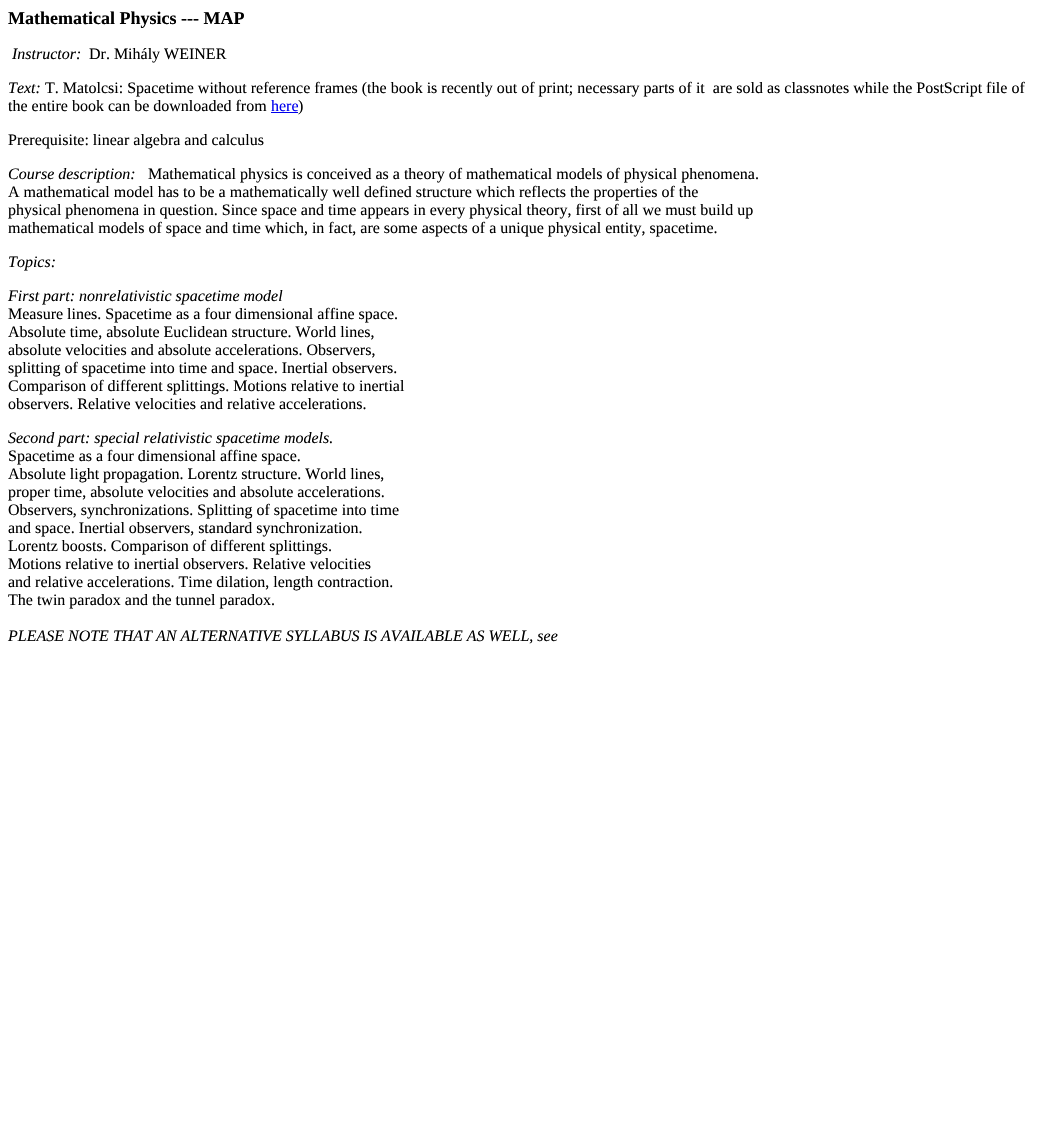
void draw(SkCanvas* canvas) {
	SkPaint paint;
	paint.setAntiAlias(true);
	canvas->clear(0xffffffff);
	SkFont f1(fontMgr->matchFamilyStyle("Liberation Serif", SkFontStyle::Bold()), 18);
	f1.setSubpixel(true);
	paint.setColor(0xff000000);
	canvas->drawString("Mathematical Physics --- MAP", 8, 24, f1, paint);
	SkFont f2(fontMgr->matchFamilyStyle("Liberation Serif", SkFontStyle::Italic()), 16);
	f2.setSubpixel(true);
	canvas->drawString("Instructor:", 12, 59, f2, paint);
	SkFont f3(fontMgr->matchFamilyStyle("Liberation Serif", SkFontStyle::Normal()), 16);
	f3.setSubpixel(true);
	canvas->drawString("Dr. Mihály WEINER", 89, 59, f3, paint);
	canvas->drawString("Text:", 8, 93, f2, paint);
	canvas->drawString("T. Matolcsi: Spacetime without reference frames (the book is recently out of print; necessary parts of it  are sold as classnotes while the PostScript file of", 45, 93, f3, paint);
	canvas->drawString("the entire book can be downloaded from", 8, 111, f3, paint);
	paint.setColor(0xff0000ee);
	canvas->drawString("here", 271, 111, f3, paint);
	canvas->drawRect(SkRect::MakeXYWH(271, 112, 27, 1), paint);
	paint.setColor(0xff000000);
	canvas->drawString(")", 298, 111, f3, paint);
	canvas->drawString("Prerequisite: linear algebra and calculus", 8, 145, f3, paint);
	canvas->drawString("Course description:", 8, 179, f2, paint);
	canvas->drawString("Mathematical physics is conceived as a theory of mathematical models of physical phenomena.", 148, 179, f3, paint);
	canvas->drawString("A mathematical model has to be a mathematically well defined structure which reflects the properties of the", 8, 197, f3, paint);
	canvas->drawString("physical phenomena in question. Since space and time appears in every physical theory, first of all we must build up", 8, 215, f3, paint);
	canvas->drawString("mathematical models of space and time which, in fact, are some aspects of a unique physical entity, spacetime.", 8, 233, f3, paint);
	canvas->drawString("Topics:", 8, 267, f2, paint);
	canvas->drawString("First part: nonrelativistic spacetime model", 8, 301, f2, paint);
	canvas->drawString("Measure lines. Spacetime as a four dimensional affine space.", 8, 319, f3, paint);
	canvas->drawString("Absolute time, absolute Euclidean structure. World lines,", 8, 337, f3, paint);
	canvas->drawString("absolute velocities and absolute accelerations. Observers,", 8, 355, f3, paint);
	canvas->drawString("splitting of spacetime into time and space. Inertial observers.", 8, 373, f3, paint);
	canvas->drawString("Comparison of different splittings. Motions relative to inertial", 8, 391, f3, paint);
	canvas->drawString("observers. Relative velocities and relative accelerations.", 8, 409, f3, paint);
	canvas->drawString("Second part: special relativistic spacetime models.", 8, 443, f2, paint);
	canvas->drawString("Spacetime as a four dimensional affine space.", 8, 461, f3, paint);
	canvas->drawString("Absolute light propagation. Lorentz structure. World lines,", 8, 479, f3, paint);
	canvas->drawString("proper time, absolute velocities and absolute accelerations.", 8, 497, f3, paint);
	canvas->drawString("Observers, synchronizations. Splitting of spacetime into time", 8, 515, f3, paint);
	canvas->drawString("and space. Inertial observers, standard synchronization.", 8, 533, f3, paint);
	canvas->drawString("Lorentz boosts. Comparison of different splittings.", 8, 551, f3, paint);
	canvas->drawString("Motions relative to inertial observers. Relative velocities", 8, 569, f3, paint);
	canvas->drawString("and relative accelerations. Time dilation, length contraction.", 8, 587, f3, paint);
	canvas->drawString("The twin paradox and the tunnel paradox.", 8, 605, f3, paint);
	canvas->drawString("PLEASE NOTE THAT AN ALTERNATIVE SYLLABUS IS AVAILABLE AS WELL, see", 8, 641, f2, paint);
}
